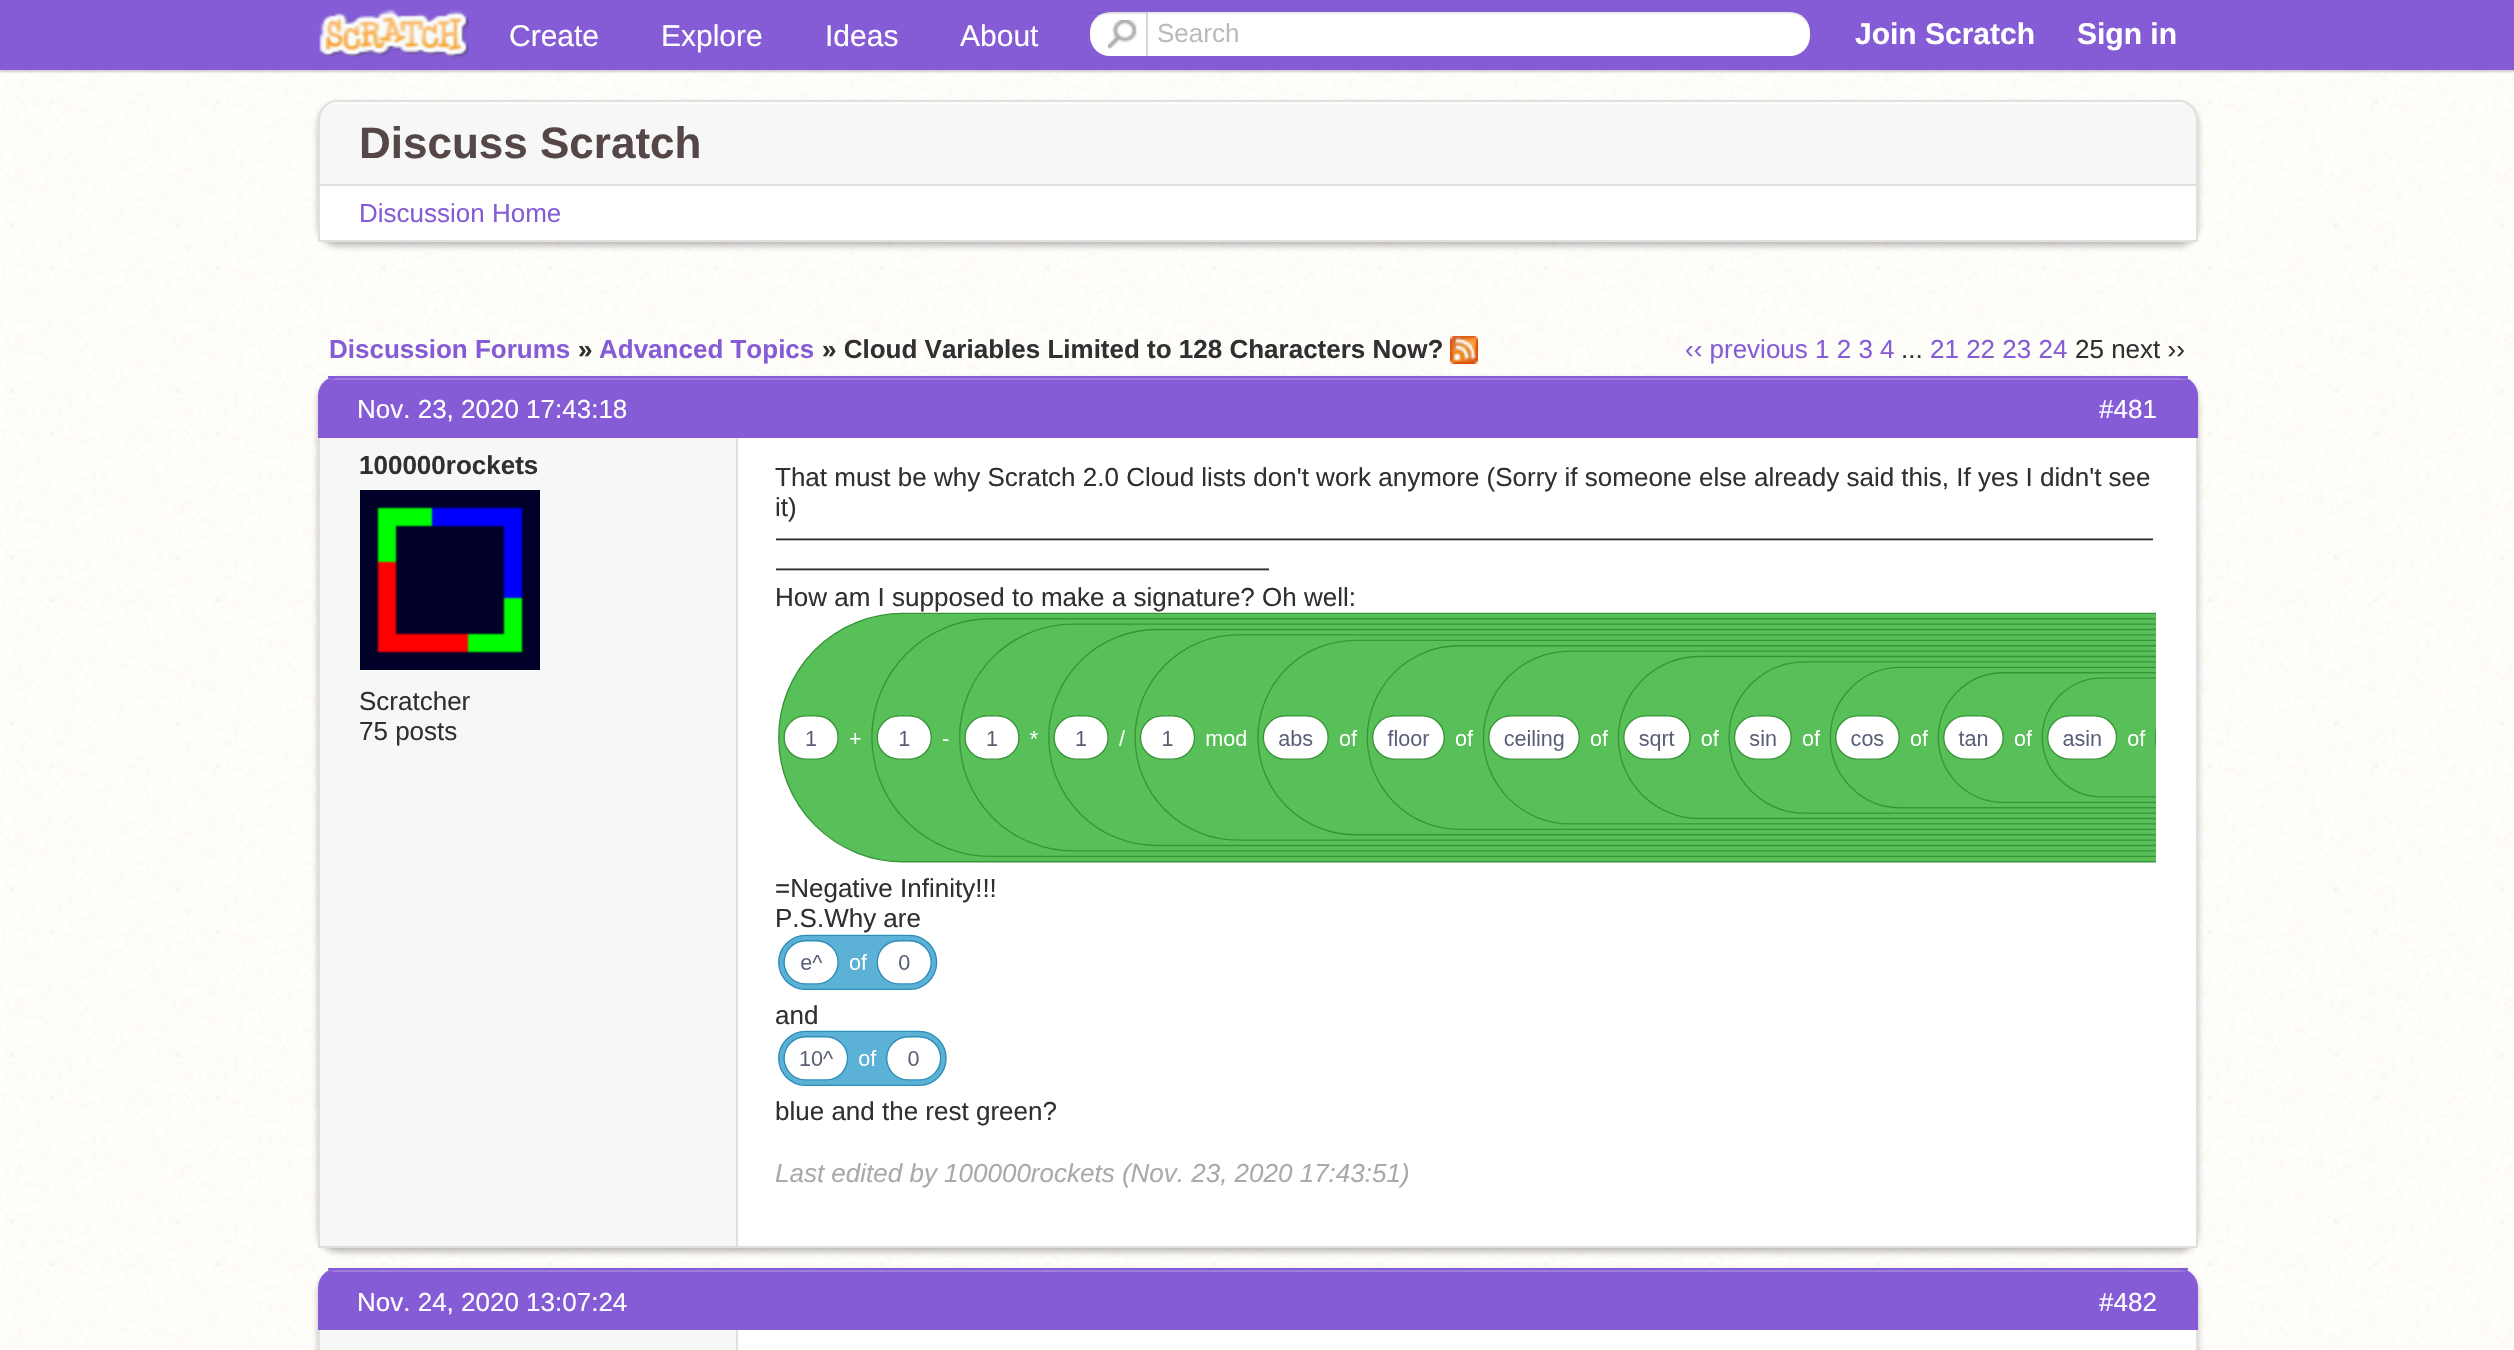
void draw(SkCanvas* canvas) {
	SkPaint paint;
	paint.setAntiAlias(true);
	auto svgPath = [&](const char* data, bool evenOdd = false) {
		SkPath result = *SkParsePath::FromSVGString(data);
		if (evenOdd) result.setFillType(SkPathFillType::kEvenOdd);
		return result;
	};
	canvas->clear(0xffffffff);
	canvas->drawImageRect(SkImages::DeferredFromEncodedData(SkData::MakeFromFileName("img1.png")), SkRect::MakeXYWH(0, 70, 2514, 1280), SkSamplingOptions());
	paint.setColor(0xffcccccc);
	paint.setMaskFilter(SkMaskFilter::MakeBlur(kNormal_SkBlurStyle, 1));
	canvas->drawRect(SkRect::MakeXYWH(0, 2, 2514, 70), paint);
	paint.setMaskFilter(nullptr);
	paint.setColor(0xff855cd6);
	canvas->drawRect(SkRect::MakeXYWH(0, 0, 2514, 70), paint);
	canvas->drawImageRect(SkImages::DeferredFromEncodedData(SkData::MakeFromFileName("img2.png")), SkRect::MakeXYWH(319, 9, 151, 50), SkSamplingOptions());
	SkFont f1(fontMgr->matchFamilyStyle("Liberation Sans", SkFontStyle::Normal()), 30);
	f1.setSubpixel(true);
	paint.setColor(0xffffffff);
	canvas->drawString("Create", 509, 46, f1, paint);
	canvas->drawString("Explore", 661, 46, f1, paint);
	canvas->drawString("Ideas", 825, 46, f1, paint);
	canvas->drawString("About", 960, 46, f1, paint);
	canvas->drawRoundRect(SkRect::MakeXYWH(1090, 12, 720, 44), 20, 20, paint);
	paint.setColor(0x12000000);
	canvas->drawPath(svgPath("M1110 14H1790C1801 14 1810 23 1810 34V32C1810 21 1801 12 1790 12H1110C1099 12 1090 21 1090 32V34C1090 23 1099 14 1110 14Z"), paint);
	canvas->drawImageRect(SkImages::DeferredFromEncodedData(SkData::MakeFromFileName("img3.png")), SkRect::MakeXYWH(1108, 20, 29, 29), SkSamplingOptions());
	paint.setColor(0x0f000000);
	canvas->drawRect(SkRect::MakeXYWH(1090, 12, 56, 2), paint);
	paint.setColor(0xcccccccc);
	canvas->drawRect(SkRect::MakeXYWH(1146, 12, 2, 44), paint);
	SkFont f2(fontMgr->matchFamilyStyle("Liberation Sans", SkFontStyle::Normal()), 26);
	f2.setSubpixel(true);
	paint.setColor(0xffbbbbbb);
	canvas->drawString("Search", 1157, 42, f2, paint);
	SkFont f3(fontMgr->matchFamilyStyle("Liberation Sans", SkFontStyle::Bold()), 30);
	f3.setSubpixel(true);
	paint.setColor(0xffffffff);
	canvas->drawString("Join Scratch", 1855, 44, f3, paint);
	canvas->drawString("Sign in", 2077, 44, f3, paint);
	paint.setColor(0x4d221919);
	paint.setMaskFilter(SkMaskFilter::MakeBlur(kNormal_SkBlurStyle, 3));
	canvas->drawRoundRect(SkRect::MakeXYWH(318, 104, 1880, 142), 20, 20, paint);
	paint.setMaskFilter(nullptr);
	paint.setColor(0xfff7f7f7);
	canvas->drawPath(svgPath("M338 101H2178C2188.5 101 2197 109.5 2197 120V241H319V120C319 109.5 327.5 101 338 101Z"), paint);
	paint.setStroke(true);
	paint.setStrokeWidth(2);
	paint.setColor(0xffe0e0e0);
	canvas->drawPath(svgPath("M338 101H2178C2188.5 101 2197 109.5 2197 120V241H319V120C319 109.5 327.5 101 338 101Z"), paint);
	canvas->save();
	canvas->clipPath(svgPath("M338 102H2178C2188 102 2196 110 2196 120V240H320V120C320 110 328 102 338 102Z"), true);
	paint.setStroke(false);
	paint.setColor(0xffffffff);
	canvas->drawRect(SkRect::MakeXYWH(330, 102, 1856, 2), paint);
	canvas->restore();
	SkFont f4(fontMgr->matchFamilyStyle("Liberation Sans", SkFontStyle::Bold()), 44);
	f4.setSubpixel(true);
	paint.setColor(0xff554747);
	canvas->drawString("Discuss Scratch", 359, 158, f4, paint);
	paint.setColor(0xffffffff);
	canvas->drawRect(SkRect::MakeXYWH(320, 186, 1876, 54), paint);
	paint.setColor(0xffe0e0e0);
	canvas->drawRect(SkRect::MakeXYWH(320, 184, 1876, 2), paint);
	paint.setColor(0xff855cd6);
	canvas->drawString("Discussion Home", 359, 222, f2, paint);
	SkFont f5(fontMgr->matchFamilyStyle("Liberation Sans", SkFontStyle::Bold()), 26);
	f5.setSubpixel(true);
	canvas->drawString("Discussion Forums", 329, 358, f5, paint);
	paint.setColor(0xff322f31);
	canvas->drawString("»", 578, 358, f5, paint);
	paint.setColor(0xff855cd6);
	canvas->drawString("Advanced Topics", 599, 358, f5, paint);
	paint.setColor(0xff322f31);
	canvas->drawString("» Cloud Variables Limited to 128 Characters Now?", 822, 358, f5, paint);
	canvas->drawImageRect(SkImages::DeferredFromEncodedData(SkData::MakeFromFileName("img4.png")), SkRect::MakeXYWH(1450, 336, 28, 28), SkSamplingOptions());
	paint.setColor(0xff855cd6);
	canvas->drawString("‹‹ previous 1 2 3 4", 1685, 358, f2, paint);
	paint.setColor(0xff322f31);
	canvas->drawString("...", 1901, 358, f2, paint);
	paint.setColor(0xff855cd6);
	canvas->drawString("21 22 23 24", 1930, 358, f2, paint);
	paint.setColor(0xff322f31);
	canvas->drawString("25 next ››", 2075, 358, f2, paint);
	paint.setColor(0x4d221919);
	paint.setMaskFilter(SkMaskFilter::MakeBlur(kNormal_SkBlurStyle, 3));
	canvas->drawRoundRect(SkRect::MakeXYWH(318, 380, 1880, 872), 20, 20, paint);
	paint.setMaskFilter(nullptr);
	paint.setColor(0xff855cd6);
	canvas->drawPath(svgPath("M338 376H2178C2189 376 2198 385 2198 396V1248H318V396C318 385 327 376 338 376Z"), paint);
	canvas->drawRect(SkRect::MakeXYWH(328, 376, 1860, 2), paint);
	paint.setColor(0xff9d7dde);
	canvas->drawPath(svgPath("M338 378C335 378 332 379 329 380H2187C2184 379 2181 378 2178 378Z"), paint);
	paint.setColor(0xffffffff);
	canvas->drawString("Nov. 23, 2020 17:43:18", 357, 418, f2, paint);
	canvas->drawString("#481", 2099, 418, f2, paint);
	canvas->drawRect(SkRect::MakeXYWH(738, 438, 1458, 808), paint);
	paint.setColor(0xffe0e0e0);
	canvas->drawRect(SkRect::MakeXYWH(2196, 438, 2, 810), paint);
	canvas->drawRect(SkRect::MakeXYWH(318, 1246, 1880, 2), paint);
	canvas->drawRect(SkRect::MakeXYWH(318, 438, 2, 810), paint);
	paint.setColor(0xfff7f7f7);
	canvas->drawRect(SkRect::MakeXYWH(320, 438, 416, 808), paint);
	paint.setColor(0xff322f31);
	canvas->drawString("100000rockets", 359, 474, f5, paint);
	canvas->drawImageRect(SkImages::DeferredFromEncodedData(SkData::MakeFromFileName("img5.png")), SkRect::MakeXYWH(360, 490, 180, 180), SkSamplingOptions());
	canvas->drawString("Scratcher", 359, 710, f2, paint);
	canvas->drawString("75 posts", 359, 740, f2, paint);
	paint.setColor(0xffe0e0e0);
	canvas->drawRect(SkRect::MakeXYWH(736, 438, 2, 808), paint);
	paint.setColor(0xff322f31);
	canvas->drawString("That must be why Scratch 2.0 Cloud lists don't work anymore (Sorry if someone else already said this, If yes I didn't see", 775, 486, f2, paint);
	canvas->drawString("it)", 775, 516, f2, paint);
	canvas->save();
	canvas->clipRect(SkRect::MakeXYWH(776, 462, 1380, 730));
	canvas->drawString("—————————————————————————————————————————————————————", 775, 546, f2, paint);
	canvas->drawString("———————————————————", 775, 576, f2, paint);
	canvas->restore();
	canvas->drawString("How am I supposed to make a signature? Oh well:", 775, 606, f2, paint);
	canvas->drawImageRect(SkImages::DeferredFromEncodedData(SkData::MakeFromFileName("img6.png")), SkRect::MakeXYWH(778, 612, 1378, 251), SkSamplingOptions());
	canvas->drawString("=Negative Infinity!!!", 775, 897, f2, paint);
	canvas->drawString("P.S.Why are", 775, 927, f2, paint);
	canvas->drawImageRect(SkImages::DeferredFromEncodedData(SkData::MakeFromFileName("img7.png")), SkRect::MakeXYWH(778, 934, 160, 56), SkSamplingOptions());
	canvas->drawString("and", 775, 1024, f2, paint);
	canvas->drawImageRect(SkImages::DeferredFromEncodedData(SkData::MakeFromFileName("img8.png")), SkRect::MakeXYWH(778, 1030, 169, 56), SkSamplingOptions());
	canvas->drawString("blue and the rest green?", 775, 1120, f2, paint);
	SkFont f6(fontMgr->matchFamilyStyle("Liberation Sans", SkFontStyle::Italic()), 26);
	f6.setSubpixel(true);
	paint.setColor(0xffaaaaaa);
	canvas->drawString("Last edited by 100000rockets (Nov. 23, 2020 17:43:51)", 775, 1182, f6, paint);
	paint.setColor(0x4d221919);
	paint.setMaskFilter(SkMaskFilter::MakeBlur(kNormal_SkBlurStyle, 3));
	canvas->drawRoundRect(SkRect::MakeXYWH(318, 1272, 1880, 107), 20, 20, paint);
	paint.setMaskFilter(nullptr);
	paint.setColor(0xff855cd6);
	canvas->drawPath(svgPath("M338 1268H2178C2189 1268 2198 1277 2198 1288V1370H318V1288C318 1277 327 1268 338 1268Z"), paint);
	canvas->drawRect(SkRect::MakeXYWH(328, 1268, 1860, 2), paint);
	paint.setColor(0xff9d7dde);
	canvas->drawPath(svgPath("M338 1270C335 1270 332 1271 329 1272H2187C2184 1271 2181 1270 2178 1270Z"), paint);
	paint.setColor(0xffffffff);
	canvas->drawString("Nov. 24, 2020 13:07:24", 357, 1311, f2, paint);
	canvas->drawString("#482", 2099, 1311, f2, paint);
	canvas->drawRect(SkRect::MakeXYWH(738, 1330, 1458, 20), paint);
	paint.setColor(0xffe0e0e0);
	canvas->drawRect(SkRect::MakeXYWH(2196, 1330, 2, 20), paint);
	canvas->drawRect(SkRect::MakeXYWH(318, 1330, 2, 20), paint);
	canvas->drawRect(SkRect::MakeXYWH(736, 1330, 2, 20), paint);
	paint.setColor(0xfff7f7f7);
	canvas->drawRect(SkRect::MakeXYWH(320, 1330, 416, 20), paint);
}
